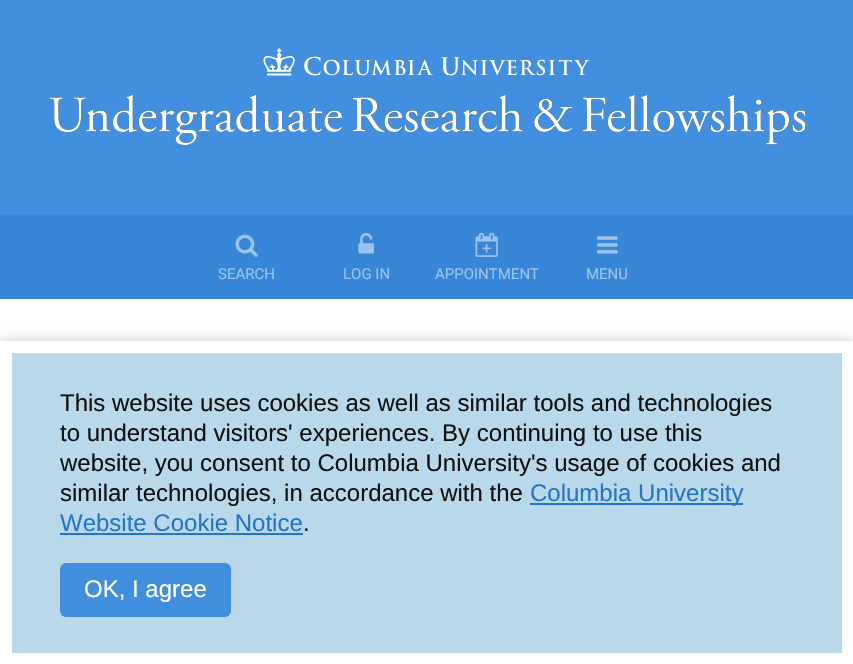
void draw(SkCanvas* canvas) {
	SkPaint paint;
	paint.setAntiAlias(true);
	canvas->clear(0xffffffff);
	paint.setColor(0xff418fde);
	canvas->drawRect(SkRect::MakeXYWH(0, 0, 853, 215), paint);
	canvas->drawImageRect(SkImages::DeferredFromEncodedData(SkData::MakeFromFileName("img1.png")), SkRect::MakeXYWH(263, 48, 327, 28), SkSamplingOptions());
	canvas->drawImageRect(SkImages::DeferredFromEncodedData(SkData::MakeFromFileName("img2.png")), SkRect::MakeXYWH(49, 95, 757, 50), SkSamplingOptions());
	paint.setColor(0xff3786d7);
	canvas->drawRect(SkRect::MakeXYWH(0, 215, 853, 84), paint);
	canvas->drawImageRect(SkImages::DeferredFromEncodedData(SkData::MakeFromFileName("img3.png")), SkRect::MakeXYWH(235, 234, 23, 23), SkSamplingOptions());
	SkFont f1(fontMgr->matchFamilyStyle("Roboto", SkFontStyle::Normal()), 15);
	f1.setSubpixel(true);
	paint.setColor(0xff9bc3eb);
	canvas->drawString("SEARCH", 218, 279, f1, paint);
	canvas->drawImageRect(SkImages::DeferredFromEncodedData(SkData::MakeFromFileName("img4.png")), SkRect::MakeXYWH(358, 232, 16, 22), SkSamplingOptions());
	canvas->drawString("LOG IN", 343, 279, f1, paint);
	canvas->drawImageRect(SkImages::DeferredFromEncodedData(SkData::MakeFromFileName("img5.png")), SkRect::MakeXYWH(475, 232, 23, 25), SkSamplingOptions());
	canvas->drawString("APPOINTMENT", 435, 279, f1, paint);
	canvas->drawImageRect(SkImages::DeferredFromEncodedData(SkData::MakeFromFileName("img6.png")), SkRect::MakeXYWH(597, 236, 21, 18), SkSamplingOptions());
	canvas->drawString("MENU", 586, 279, f1, paint);
	paint.setColor(0x33000000);
	paint.setMaskFilter(SkMaskFilter::MakeBlur(kNormal_SkBlurStyle, 6));
	canvas->drawRect(SkRect::MakeXYWH(0, 341, 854, 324), paint);
	paint.setMaskFilter(nullptr);
	paint.setColor(0xffb9d9eb);
	canvas->drawRect(SkRect::MakeXYWH(6, 347, 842, 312), paint);
	paint.setStroke(true);
	paint.setStrokeWidth(12);
	paint.setColor(0xffffffff);
	canvas->drawRect(SkRect::MakeXYWH(6, 347, 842, 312), paint);
	SkFont f2(fontMgr->matchFamilyStyle("Liberation Sans", SkFontStyle::Normal()), 24);
	f2.setSubpixel(true);
	paint.setStroke(false);
	paint.setColor(0xff111111);
	canvas->drawString("This website uses cookies as well as similar tools and technologies", 60, 411, f2, paint);
	canvas->drawString("to understand visitors' experiences. By continuing to use this", 60, 441, f2, paint);
	canvas->drawString("website, you consent to Columbia University's usage of cookies and", 60, 471, f2, paint);
	canvas->drawString("similar technologies, in accordance with the", 60, 501, f2, paint);
	paint.setColor(0xff2375c9);
	canvas->drawRect(SkRect::MakeXYWH(530, 503, 213, 2), paint);
	canvas->drawString("Columbia University", 530, 501, f2, paint);
	canvas->drawString("Website Cookie Notice", 60, 531, f2, paint);
	canvas->drawRect(SkRect::MakeXYWH(60, 533, 243, 2), paint);
	paint.setColor(0xff111111);
	canvas->drawString(".", 303, 531, f2, paint);
	paint.setColor(0xff418fde);
	canvas->drawRoundRect(SkRect::MakeXYWH(60, 563, 171, 54), 6, 6, paint);
	paint.setColor(0xffffffff);
	canvas->drawString("OK, I agree", 84, 597, f2, paint);
}
